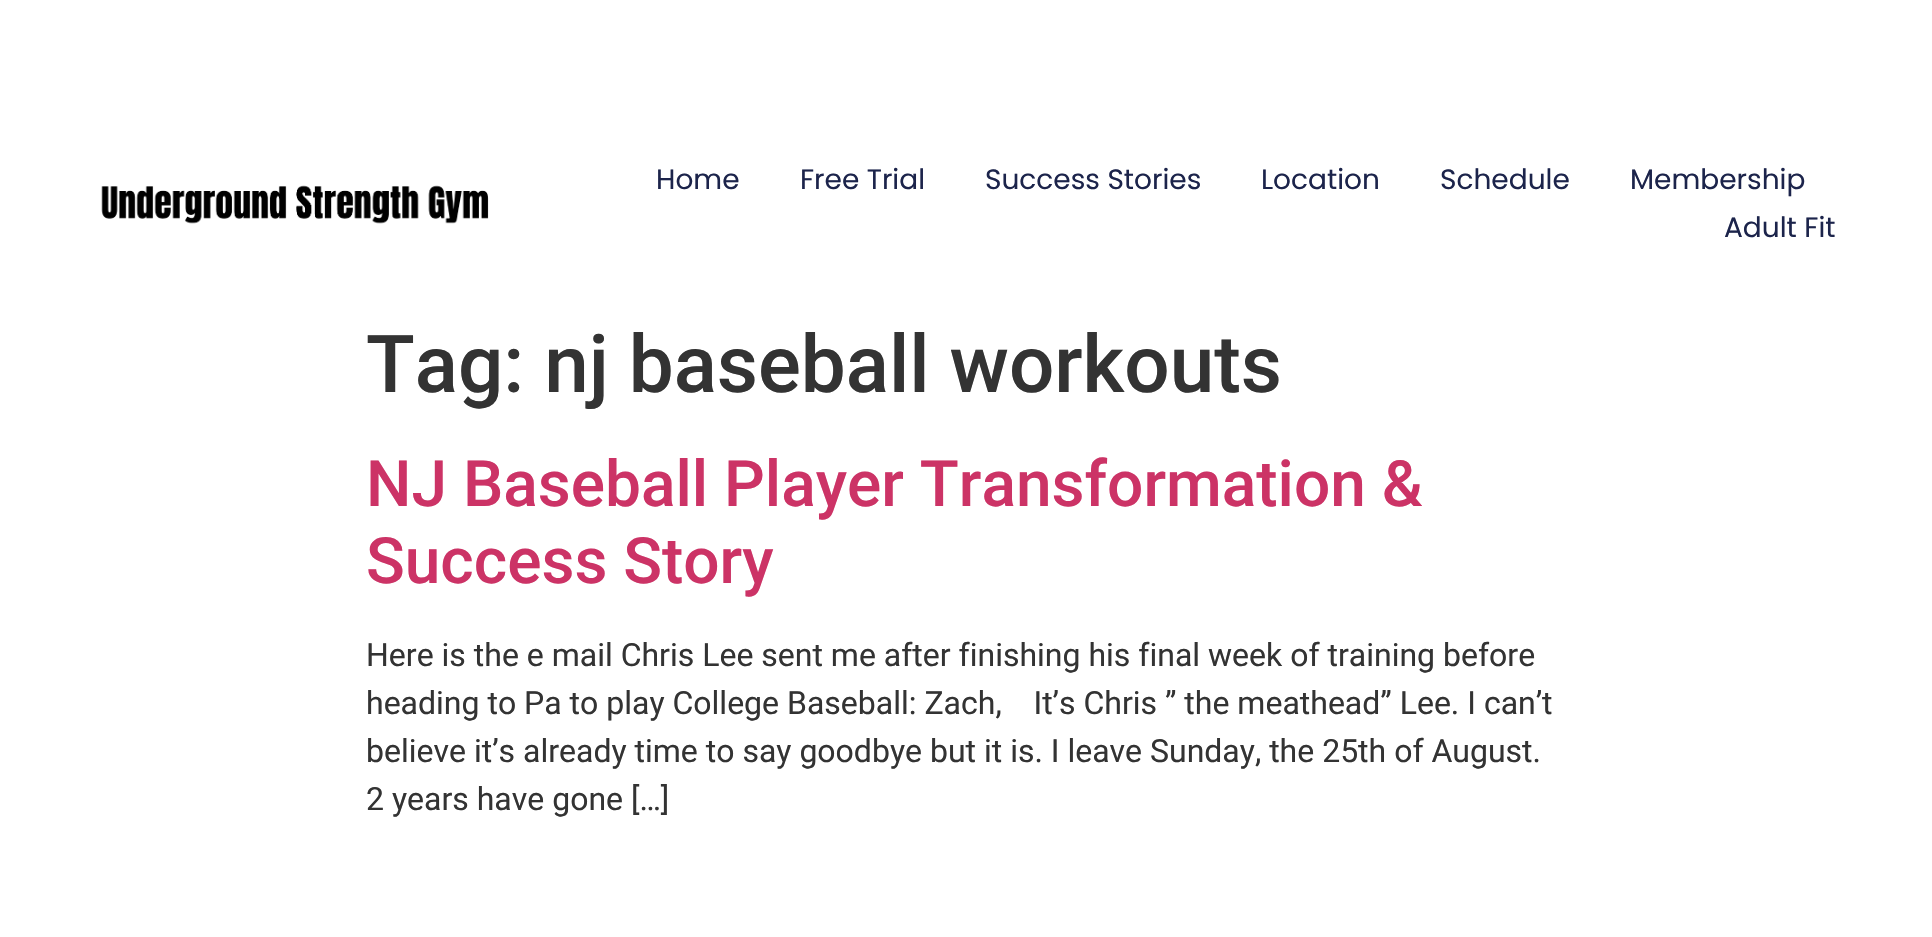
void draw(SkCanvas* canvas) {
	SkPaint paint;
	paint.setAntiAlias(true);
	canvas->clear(0xffffffff);
	canvas->drawImageRect(SkImages::DeferredFromEncodedData(SkData::MakeFromFileName("img1.png")), SkRect::MakeXYWH(101, 185, 388, 39), SkSamplingOptions());
	SkFont f1(fontMgr->matchFamilyStyle("Poppins", SkFontStyle::Normal()), 28);
	f1.setSubpixel(true);
	paint.setColor(0xff1c244b);
	canvas->drawString("Home", 656, 189, f1, paint);
	canvas->drawString("Free Trial", 800, 189, f1, paint);
	canvas->drawString("Success Stories", 985, 189, f1, paint);
	canvas->drawString("Location", 1261, 189, f1, paint);
	canvas->drawString("Schedule", 1440, 189, f1, paint);
	canvas->drawString("Membership", 1630, 189, f1, paint);
	canvas->drawString("Adult Fit", 1724, 237, f1, paint);
	SkFont f2(fontMgr->matchFamilyStyle("Roboto", SkFontStyle(500, SkFontStyle::kNormal_Width, SkFontStyle::kUpright_Slant)), 80);
	f2.setSubpixel(true);
	paint.setColor(0xff333333);
	canvas->drawString("Tag: nj baseball workouts", 366, 392, f2, paint);
	SkFont f3(fontMgr->matchFamilyStyle("Roboto", SkFontStyle(500, SkFontStyle::kNormal_Width, SkFontStyle::kUpright_Slant)), 64);
	f3.setSubpixel(true);
	paint.setColor(0xffcc3366);
	canvas->drawString("NJ Baseball Player Transformation &", 366, 506, f3, paint);
	canvas->drawString("Success Story", 366, 583, f3, paint);
	SkFont f4(fontMgr->matchFamilyStyle("Roboto", SkFontStyle::Normal()), 32);
	f4.setSubpixel(true);
	paint.setColor(0xff333333);
	canvas->drawString("Here is the e mail Chris Lee sent me after finishing his final week of training before", 366, 666, f4, paint);
	canvas->drawString("heading to Pa to play College Baseball: Zach,    It’s Chris ” the meathead” Lee. I can’t", 366, 714, f4, paint);
	canvas->drawString("believe it’s already time to say goodbye but it is. I leave Sunday, the 25th of August.", 366, 762, f4, paint);
	canvas->drawString("2 years have gone […]", 366, 810, f4, paint);
}
